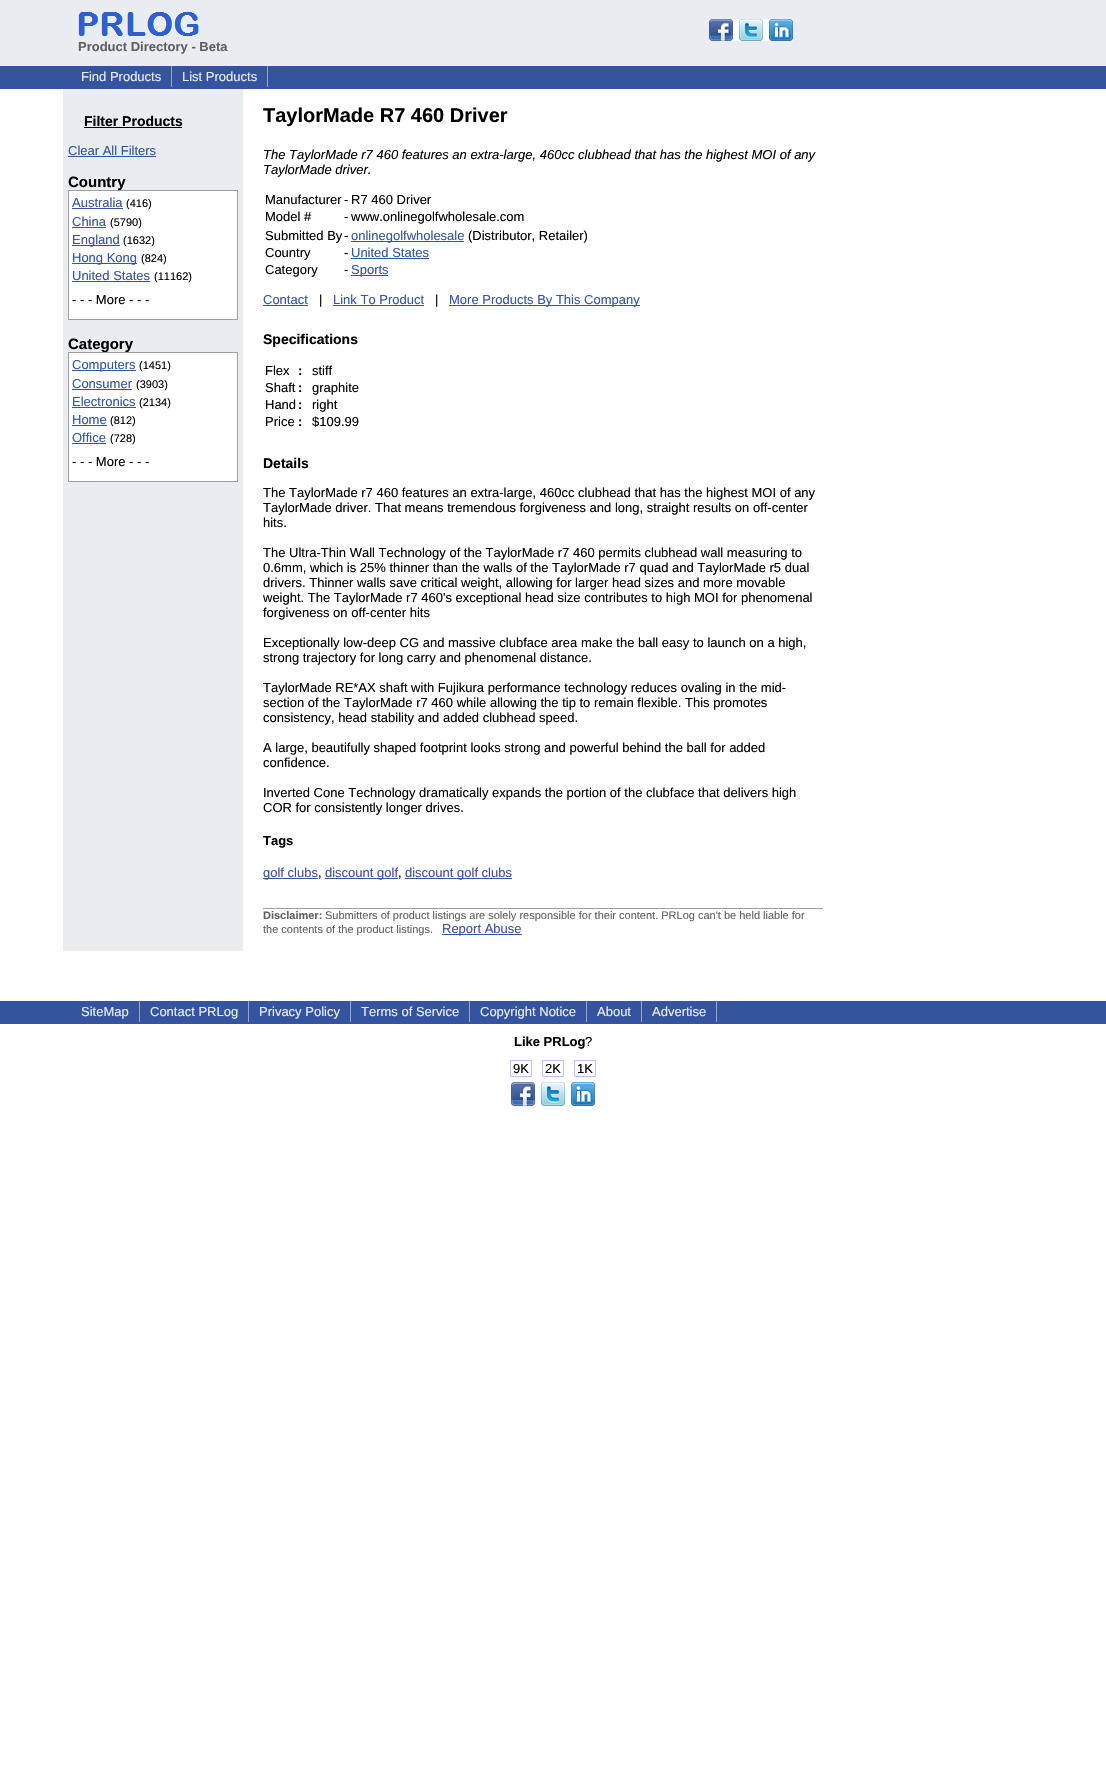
void draw(SkCanvas* canvas) {
	SkPaint paint;
	paint.setAntiAlias(true);
	canvas->clear(0xffffffff);
	paint.setColor(0xffe9edf2);
	canvas->drawRect(SkRect::MakeXYWH(0, 0, 1106, 66), paint);
	canvas->drawImageRect(SkImages::DeferredFromEncodedData(SkData::MakeFromFileName("img1.png")), SkRect::MakeXYWH(709, 19, 84, 22), SkSamplingOptions());
	canvas->drawImageRect(SkImages::DeferredFromEncodedData(SkData::MakeFromFileName("img2.png")), SkRect::MakeXYWH(78, 12, 121, 24), SkSamplingOptions());
	SkFont f1(fontMgr->matchFamilyStyle("Liberation Sans", SkFontStyle::Bold()), 13);
	f1.setSubpixel(true);
	paint.setColor(0xff606060);
	canvas->drawString("Product Directory - Beta", 78, 51, f1, paint);
	paint.setColor(0xff3454a0);
	canvas->drawRect(SkRect::MakeXYWH(0, 66, 1106, 23), paint);
	paint.setColor(0xffa0a0c0);
	canvas->drawRect(SkRect::MakeXYWH(171, 66, 1, 21), paint);
	SkFont f2(fontMgr->matchFamilyStyle("Liberation Sans", SkFontStyle::Normal()), 13);
	f2.setSubpixel(true);
	paint.setColor(0xffe9edf2);
	canvas->drawString("Find Products", 81, 81, f2, paint);
	paint.setColor(0xffa0a0c0);
	canvas->drawRect(SkRect::MakeXYWH(267, 66, 1, 21), paint);
	paint.setColor(0xffe9edf2);
	canvas->drawString("List Products", 182, 81, f2, paint);
	canvas->drawRect(SkRect::MakeXYWH(63, 89, 180, 862), paint);
	SkFont f3(fontMgr->matchFamilyStyle("Liberation Sans", SkFontStyle::Bold()), 14);
	f3.setSubpixel(true);
	paint.setColor(0xff000000);
	canvas->drawString("Filter Products", 84, 126, f3, paint);
	canvas->drawRect(SkRect::MakeXYWH(84, 127, 98, 1), paint);
	paint.setColor(0xff3454a0);
	canvas->drawString("Clear All Filters", 68, 155, f2, paint);
	canvas->drawRect(SkRect::MakeXYWH(68, 156, 88, 1), paint);
	SkFont f4(fontMgr->matchFamilyStyle("Liberation Sans", SkFontStyle::Bold()), 15);
	f4.setSubpixel(true);
	paint.setColor(0xff000000);
	canvas->drawString("Country", 68, 187, f4, paint);
	paint.setColor(0xffffffff);
	canvas->drawRect(SkRect::MakeXYWH(68.5, 190.5, 169, 129), paint);
	paint.setStroke(true);
	paint.setStrokeWidth(1);
	paint.setColor(0xffa0a0a0);
	canvas->drawRect(SkRect::MakeXYWH(68.5, 190.5, 169, 129), paint);
	paint.setStroke(false);
	paint.setColor(0xff3454a0);
	canvas->drawString("Australia", 72, 207, f2, paint);
	canvas->drawRect(SkRect::MakeXYWH(72, 208, 51, 1), paint);
	SkFont f5(fontMgr->matchFamilyStyle("Liberation Sans", SkFontStyle::Normal()), 11);
	f5.setSubpixel(true);
	paint.setColor(0xff000000);
	canvas->drawString("(416)", 126, 207, f5, paint);
	paint.setColor(0xff3454a0);
	canvas->drawString("China", 72, 226, f2, paint);
	canvas->drawRect(SkRect::MakeXYWH(72, 227, 34, 1), paint);
	paint.setColor(0xff000000);
	canvas->drawString("(5790)", 110, 226, f5, paint);
	paint.setColor(0xff3454a0);
	canvas->drawRect(SkRect::MakeXYWH(72, 245, 48, 1), paint);
	canvas->drawString("England", 72, 244, f2, paint);
	paint.setColor(0xff000000);
	canvas->drawString("(1632)", 123, 244, f5, paint);
	paint.setColor(0xff3454a0);
	canvas->drawRect(SkRect::MakeXYWH(72, 263, 65, 1), paint);
	canvas->drawString("Hong Kong", 72, 262, f2, paint);
	paint.setColor(0xff000000);
	canvas->drawString("(824)", 141, 262, f5, paint);
	paint.setColor(0xff3454a0);
	canvas->drawString("United States", 72, 280, f2, paint);
	canvas->drawRect(SkRect::MakeXYWH(72, 281, 78, 1), paint);
	paint.setColor(0xff000000);
	canvas->drawString("(11162)", 154, 280, f5, paint);
	canvas->drawString("- - - More - - -", 72, 304, f2, paint);
	canvas->drawString("Category", 68, 349, f4, paint);
	paint.setColor(0xffffffff);
	canvas->drawRect(SkRect::MakeXYWH(68.5, 352.5, 169, 129), paint);
	paint.setStroke(true);
	paint.setColor(0xffa0a0a0);
	canvas->drawRect(SkRect::MakeXYWH(68.5, 352.5, 169, 129), paint);
	paint.setStroke(false);
	paint.setColor(0xff3454a0);
	canvas->drawRect(SkRect::MakeXYWH(72, 370, 64, 1), paint);
	canvas->drawString("Computers", 72, 369, f2, paint);
	paint.setColor(0xff000000);
	canvas->drawString("(1451)", 139, 369, f5, paint);
	paint.setColor(0xff3454a0);
	canvas->drawString("Consumer", 72, 388, f2, paint);
	canvas->drawRect(SkRect::MakeXYWH(72, 389, 60, 1), paint);
	paint.setColor(0xff000000);
	canvas->drawString("(3903)", 136, 388, f5, paint);
	paint.setColor(0xff3454a0);
	canvas->drawString("Electronics", 72, 406, f2, paint);
	canvas->drawRect(SkRect::MakeXYWH(72, 407, 64, 1), paint);
	paint.setColor(0xff000000);
	canvas->drawString("(2134)", 139, 406, f5, paint);
	paint.setColor(0xff3454a0);
	canvas->drawString("Home", 72, 424, f2, paint);
	canvas->drawRect(SkRect::MakeXYWH(72, 425, 35, 1), paint);
	paint.setColor(0xff000000);
	canvas->drawString("(812)", 110, 424, f5, paint);
	paint.setColor(0xff3454a0);
	canvas->drawString("Office", 72, 442, f2, paint);
	canvas->drawRect(SkRect::MakeXYWH(72, 443, 34, 1), paint);
	paint.setColor(0xff000000);
	canvas->drawString("(728)", 110, 442, f5, paint);
	canvas->drawString("- - - More - - -", 72, 466, f2, paint);
	SkFont f6(fontMgr->matchFamilyStyle("Liberation Sans", SkFontStyle::Bold()), 20);
	f6.setSubpixel(true);
	canvas->drawString("TaylorMade R7 460 Driver", 263, 122, f6, paint);
	SkFont f7(fontMgr->matchFamilyStyle("Liberation Sans", SkFontStyle::Italic()), 13);
	f7.setSubpixel(true);
	canvas->drawString("The TaylorMade r7 460 features an extra-large, 460cc clubhead that has the highest MOI of any", 263, 159, f7, paint);
	canvas->drawString("TaylorMade driver.", 263, 174, f7, paint);
	canvas->drawString("Manufacturer", 265, 204, f2, paint);
	canvas->drawString("-", 344, 204, f2, paint);
	canvas->drawString("R7 460 Driver", 351, 204, f2, paint);
	canvas->drawString("Model #", 265, 221, f2, paint);
	canvas->drawString("-", 344, 221, f2, paint);
	canvas->drawString("www.onlinegolfwholesale.com", 351, 221, f2, paint);
	canvas->drawString("Submitted By", 265, 240, f2, paint);
	canvas->drawString("-", 344, 240, f2, paint);
	paint.setColor(0xff3454a0);
	canvas->drawRect(SkRect::MakeXYWH(351, 241, 113, 1), paint);
	canvas->drawString("onlinegolfwholesale", 351, 240, f2, paint);
	paint.setColor(0xff000000);
	canvas->drawString("(Distributor, Retailer)", 468, 240, f2, paint);
	canvas->drawString("Country", 265, 257, f2, paint);
	canvas->drawString("-", 344, 257, f2, paint);
	paint.setColor(0xff3454a0);
	canvas->drawString("United States", 351, 257, f2, paint);
	canvas->drawRect(SkRect::MakeXYWH(351, 258, 78, 1), paint);
	paint.setColor(0xff000000);
	canvas->drawString("Category", 265, 274, f2, paint);
	canvas->drawString("-", 344, 274, f2, paint);
	paint.setColor(0xff3454a0);
	canvas->drawRect(SkRect::MakeXYWH(351, 275, 37, 1), paint);
	canvas->drawString("Sports", 351, 274, f2, paint);
	canvas->drawString("Contact", 263, 304, f2, paint);
	canvas->drawRect(SkRect::MakeXYWH(263, 305, 45, 1), paint);
	paint.setColor(0xff000000);
	canvas->drawString("|", 319, 304, f2, paint);
	paint.setColor(0xff3454a0);
	canvas->drawString("Link To Product", 333, 304, f2, paint);
	canvas->drawRect(SkRect::MakeXYWH(333, 305, 91, 1), paint);
	paint.setColor(0xff000000);
	canvas->drawString("|", 435, 304, f2, paint);
	paint.setColor(0xff3454a0);
	canvas->drawRect(SkRect::MakeXYWH(449, 305, 191, 1), paint);
	canvas->drawString("More Products By This Company", 449, 304, f2, paint);
	paint.setColor(0xff000000);
	canvas->drawString("Specifications", 263, 344, f3, paint);
	canvas->drawString("Flex", 265, 375, f2, paint);
	canvas->drawString(":", 298, 375, f1, paint);
	canvas->drawString("stiff", 312, 375, f2, paint);
	canvas->drawString("Shaft", 265, 392, f2, paint);
	canvas->drawString(":", 298, 392, f1, paint);
	canvas->drawString("graphite", 312, 392, f2, paint);
	canvas->drawString("Hand", 265, 409, f2, paint);
	canvas->drawString(":", 298, 409, f1, paint);
	canvas->drawString("right", 312, 409, f2, paint);
	canvas->drawString("Price", 265, 426, f2, paint);
	canvas->drawString(":", 298, 426, f1, paint);
	canvas->drawString("$109.99", 312, 426, f2, paint);
	canvas->drawString("Details", 263, 468, f3, paint);
	canvas->drawString("The TaylorMade r7 460 features an extra-large, 460cc clubhead that has the highest MOI of any", 263, 497, f2, paint);
	canvas->drawString("TaylorMade driver. That means tremendous forgiveness and long, straight results on off-center", 263, 512, f2, paint);
	canvas->drawString("hits.", 263, 527, f2, paint);
	canvas->drawString("The Ultra-Thin Wall Technology of the TaylorMade r7 460 permits clubhead wall measuring to", 263, 557, f2, paint);
	canvas->drawString("0.6mm, which is 25% thinner than the walls of the TaylorMade r7 quad and TaylorMade r5 dual", 263, 572, f2, paint);
	canvas->drawString("drivers. Thinner walls save critical weight, allowing for larger head sizes and more movable", 263, 587, f2, paint);
	canvas->drawString("weight. The TaylorMade r7 460's exceptional head size contributes to high MOI for phenomenal", 263, 602, f2, paint);
	canvas->drawString("forgiveness on off-center hits", 263, 617, f2, paint);
	canvas->drawString("Exceptionally low-deep CG and massive clubface area make the ball easy to launch on a high,", 263, 647, f2, paint);
	canvas->drawString("strong trajectory for long carry and phenomenal distance.", 263, 662, f2, paint);
	canvas->drawString("TaylorMade RE*AX shaft with Fujikura performance technology reduces ovaling in the mid-", 263, 692, f2, paint);
	canvas->drawString("section of the TaylorMade r7 460 while allowing the tip to remain flexible. This promotes", 263, 707, f2, paint);
	canvas->drawString("consistency, head stability and added clubhead speed.", 263, 722, f2, paint);
	canvas->drawString("A large, beautifully shaped footprint looks strong and powerful behind the ball for added", 263, 752, f2, paint);
	canvas->drawString("confidence.", 263, 767, f2, paint);
	canvas->drawString("Inverted Cone Technology dramatically expands the portion of the clubface that delivers high", 263, 797, f2, paint);
	canvas->drawString("COR for consistently longer drives.", 263, 812, f2, paint);
	canvas->drawString("Tags", 263, 845, f1, paint);
	paint.setColor(0xff3454a0);
	canvas->drawRect(SkRect::MakeXYWH(263, 878, 55, 1), paint);
	canvas->drawString("golf clubs", 263, 877, f2, paint);
	paint.setColor(0xff000000);
	canvas->drawString(",", 318, 877, f2, paint);
	paint.setColor(0xff3454a0);
	canvas->drawRect(SkRect::MakeXYWH(325, 878, 73, 1), paint);
	canvas->drawString("discount golf", 325, 877, f2, paint);
	paint.setColor(0xff000000);
	canvas->drawString(",", 398, 877, f2, paint);
	paint.setColor(0xff3454a0);
	canvas->drawRect(SkRect::MakeXYWH(405, 878, 107, 1), paint);
	canvas->drawString("discount golf clubs", 405, 877, f2, paint);
	paint.setColor(0xffa0a0a0);
	canvas->drawRect(SkRect::MakeXYWH(263, 908, 560, 1), paint);
	SkFont f8(fontMgr->matchFamilyStyle("Liberation Sans", SkFontStyle::Bold()), 11);
	f8.setSubpixel(true);
	paint.setColor(0xff606060);
	canvas->drawString("Disclaimer:", 263, 919, f8, paint);
	canvas->drawString("Submitters of product listings are solely responsible for their content. PRLog can't be held liable for", 325, 919, f5, paint);
	canvas->drawString("the contents of the product listings.", 263, 933, f5, paint);
	paint.setColor(0xff3454a0);
	canvas->drawRect(SkRect::MakeXYWH(442, 934, 80, 1), paint);
	canvas->drawString("Report Abuse", 442, 933, f2, paint);
	canvas->drawRect(SkRect::MakeXYWH(0, 1001, 1106, 23), paint);
	paint.setColor(0xffa0a0c0);
	canvas->drawRect(SkRect::MakeXYWH(139, 1001, 1, 21), paint);
	paint.setColor(0xffe9edf2);
	canvas->drawString("SiteMap", 81, 1016, f2, paint);
	paint.setColor(0xffa0a0c0);
	canvas->drawRect(SkRect::MakeXYWH(248, 1001, 1, 21), paint);
	paint.setColor(0xffe9edf2);
	canvas->drawString("Contact PRLog", 150, 1016, f2, paint);
	paint.setColor(0xffa0a0c0);
	canvas->drawRect(SkRect::MakeXYWH(350, 1001, 1, 21), paint);
	paint.setColor(0xffe9edf2);
	canvas->drawString("Privacy Policy", 259, 1016, f2, paint);
	paint.setColor(0xffa0a0c0);
	canvas->drawRect(SkRect::MakeXYWH(469, 1001, 1, 21), paint);
	paint.setColor(0xffe9edf2);
	canvas->drawString("Terms of Service", 361, 1016, f2, paint);
	paint.setColor(0xffa0a0c0);
	canvas->drawRect(SkRect::MakeXYWH(586, 1001, 1, 21), paint);
	paint.setColor(0xffe9edf2);
	canvas->drawString("Copyright Notice", 480, 1016, f2, paint);
	paint.setColor(0xffa0a0c0);
	canvas->drawRect(SkRect::MakeXYWH(641, 1001, 1, 21), paint);
	paint.setColor(0xffe9edf2);
	canvas->drawString("About", 597, 1016, f2, paint);
	paint.setColor(0xffa0a0c0);
	canvas->drawRect(SkRect::MakeXYWH(716, 1001, 1, 21), paint);
	paint.setColor(0xffe9edf2);
	canvas->drawString("Advertise", 652, 1016, f2, paint);
	paint.setColor(0xff000000);
	canvas->drawString("Like PRLog", 514, 1046, f1, paint);
	canvas->drawString("?", 585, 1046, f2, paint);
	paint.setStroke(true);
	paint.setColor(0xffc0c0ff);
	canvas->drawRect(SkRect::MakeXYWH(510.5, 1060.5, 21, 16), paint);
	paint.setStroke(false);
	paint.setColor(0xff000000);
	canvas->drawString("9K", 513, 1073, f2, paint);
	paint.setStroke(true);
	paint.setColor(0xffc0c0ff);
	canvas->drawRect(SkRect::MakeXYWH(542.5, 1060.5, 21, 16), paint);
	paint.setStroke(false);
	paint.setColor(0xff000000);
	canvas->drawString("2K", 545, 1073, f2, paint);
	paint.setStroke(true);
	paint.setColor(0xffc0c0ff);
	canvas->drawRect(SkRect::MakeXYWH(574.5, 1060.5, 21, 16), paint);
	paint.setStroke(false);
	paint.setColor(0xff000000);
	canvas->drawString("1K", 577, 1073, f2, paint);
	canvas->drawImageRect(SkImages::DeferredFromEncodedData(SkData::MakeFromFileName("img3.png")), SkRect::MakeXYWH(511, 1082, 84, 24), SkSamplingOptions());
}
